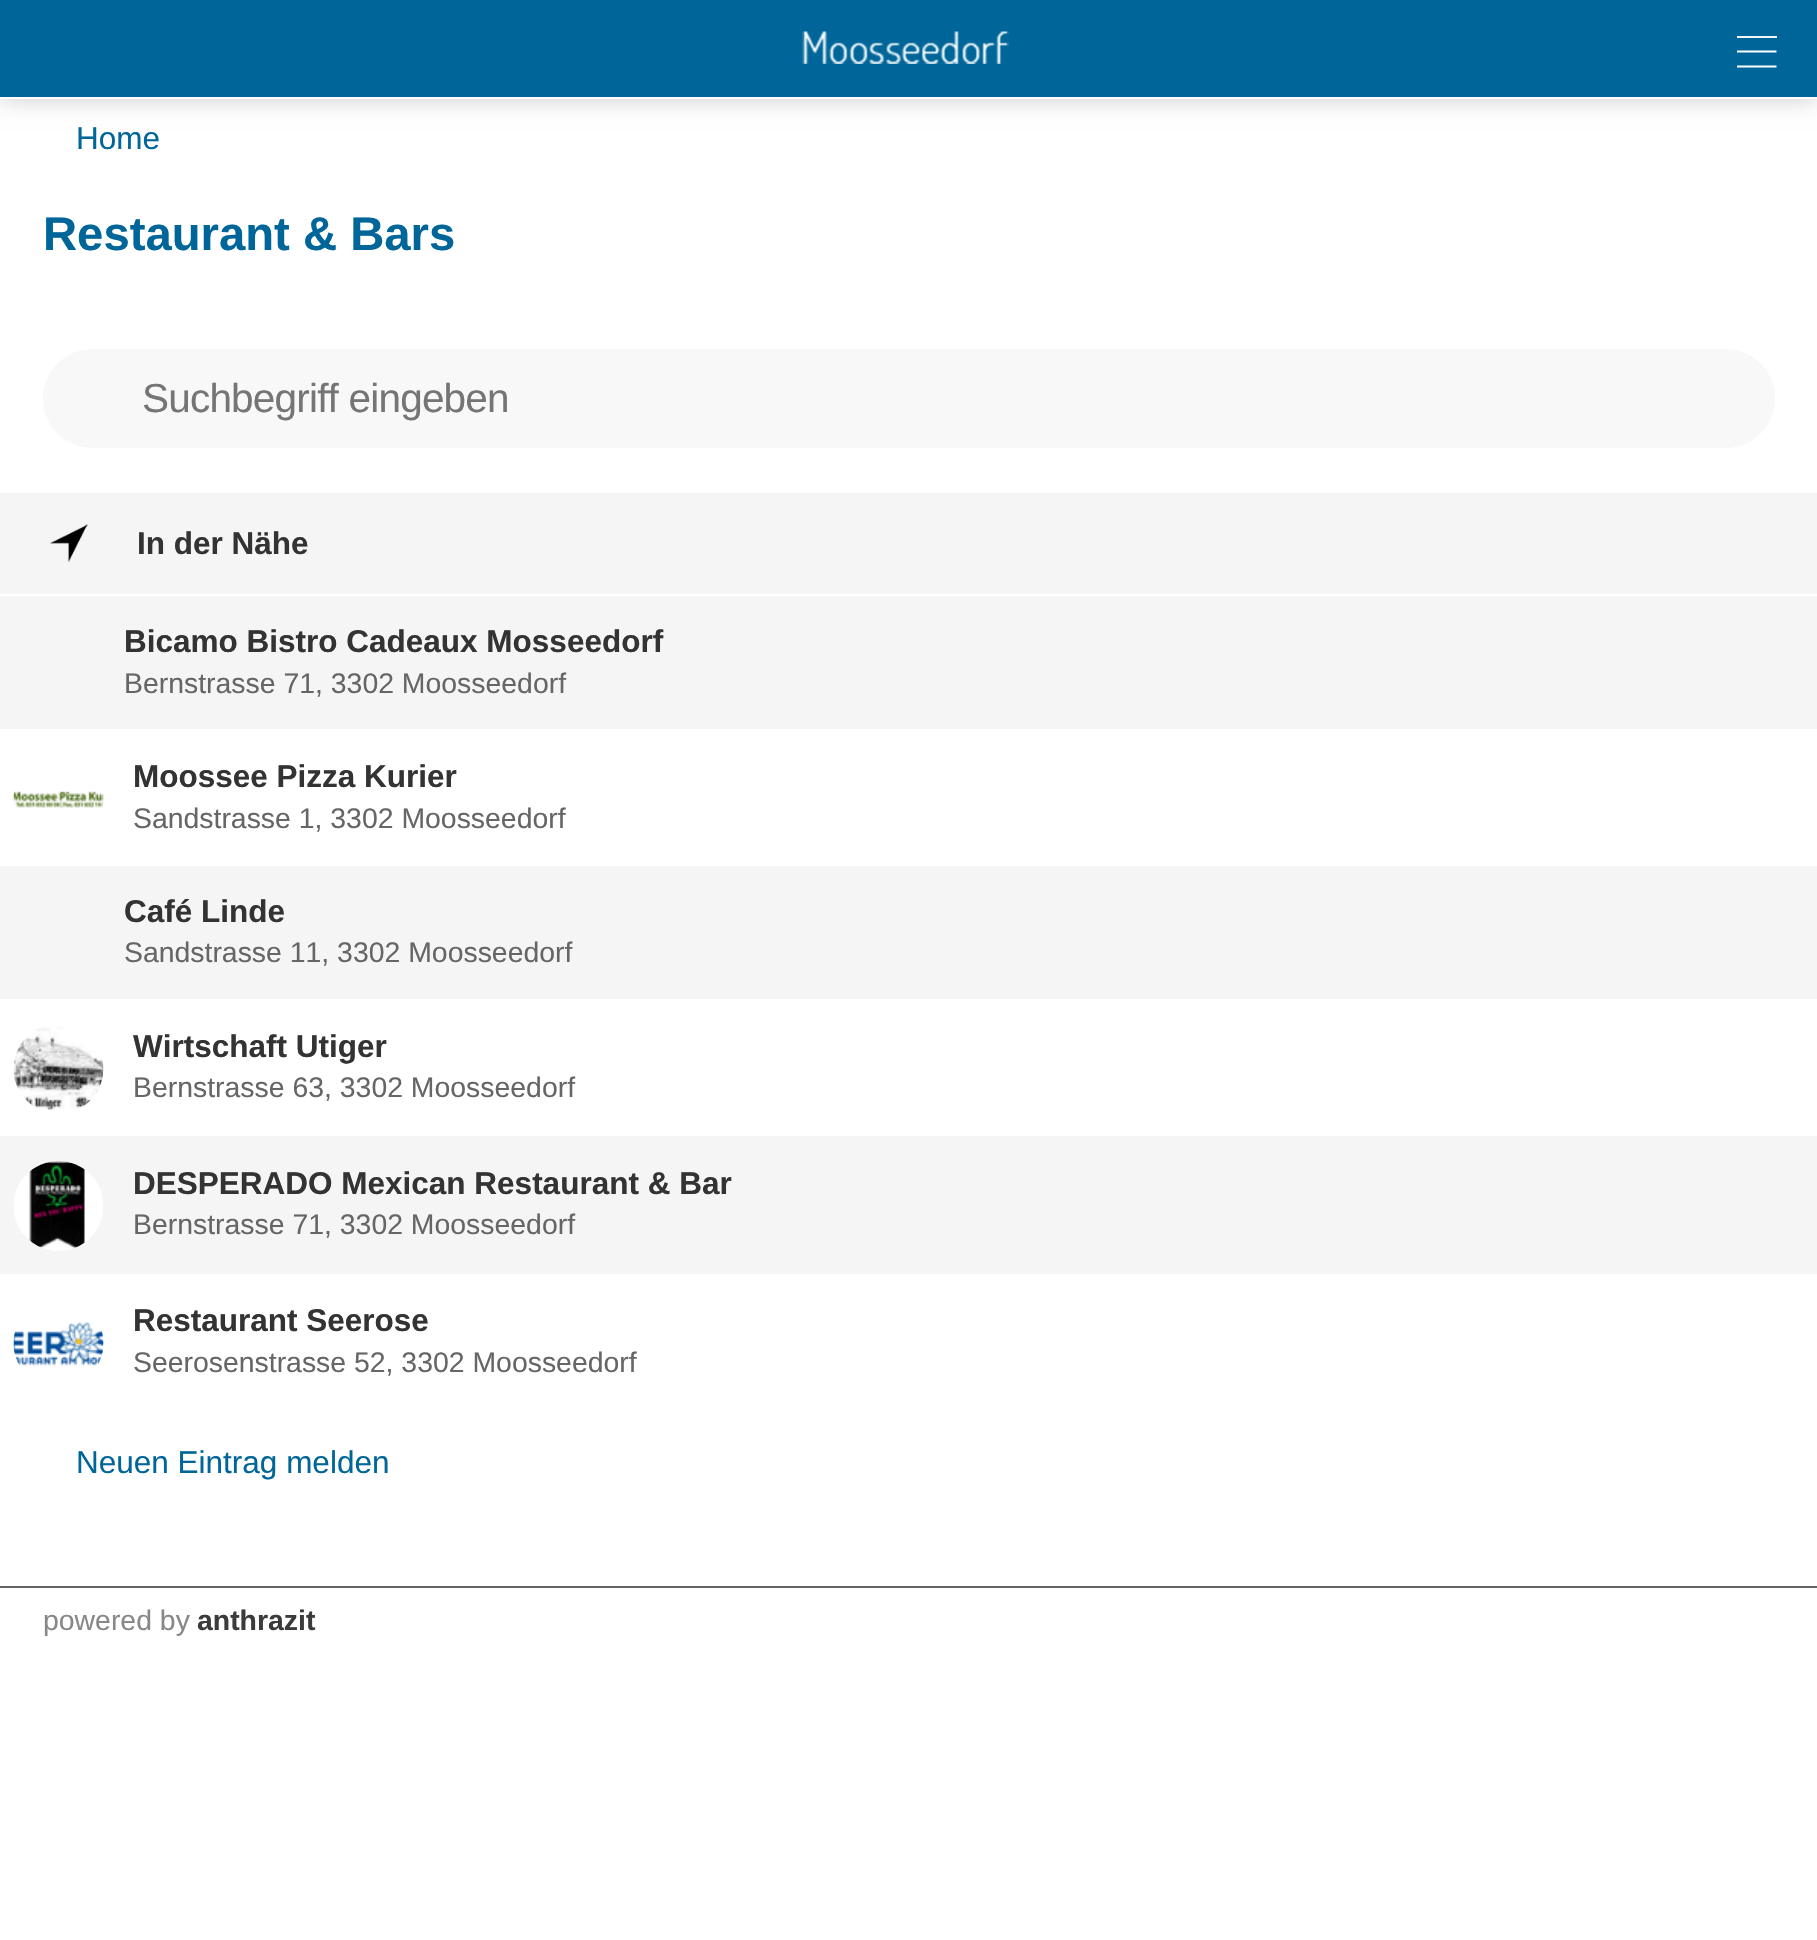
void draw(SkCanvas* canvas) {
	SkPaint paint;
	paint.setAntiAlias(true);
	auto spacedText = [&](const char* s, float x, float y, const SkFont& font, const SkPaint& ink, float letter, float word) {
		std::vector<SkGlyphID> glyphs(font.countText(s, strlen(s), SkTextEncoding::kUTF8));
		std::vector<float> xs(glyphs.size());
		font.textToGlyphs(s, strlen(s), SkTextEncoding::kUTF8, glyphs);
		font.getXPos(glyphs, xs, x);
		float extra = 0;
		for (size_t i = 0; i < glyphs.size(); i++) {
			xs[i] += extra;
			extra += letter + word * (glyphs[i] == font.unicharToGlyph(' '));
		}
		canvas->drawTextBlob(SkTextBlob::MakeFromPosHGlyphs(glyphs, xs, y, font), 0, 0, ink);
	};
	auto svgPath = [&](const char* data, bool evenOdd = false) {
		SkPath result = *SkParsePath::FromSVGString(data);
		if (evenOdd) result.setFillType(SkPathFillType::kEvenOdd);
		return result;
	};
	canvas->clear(0xffffffff);
	paint.setColor(0x33000000);
	paint.setMaskFilter(SkMaskFilter::MakeBlur(kNormal_SkBlurStyle, 11));
	canvas->drawRect(SkRect::MakeXYWH(0, 0, 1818, 99), paint);
	paint.setMaskFilter(nullptr);
	paint.setColor(0xff006699);
	canvas->drawRect(SkRect::MakeXYWH(0, 0, 1817, 97), paint);
	paint.setColor(0xffffffff);
	canvas->drawRect(SkRect::MakeXYWH(0, 97, 1817, 2), paint);
	canvas->drawImageRect(SkImages::DeferredFromEncodedData(SkData::MakeFromFileName("img1.png")), SkRect::MakeXYWH(802, 31, 207, 33), SkSamplingOptions());
	paint.setColor(0xfff2f7fa);
	canvas->drawRect(SkRect::MakeXYWH(1737, 36, 40, 2), paint);
	paint.setStroke(true);
	paint.setStrokeWidth(1.9);
	paint.setStrokeJoin(SkPaint::kRound_Join);
	paint.setColor(0xffffffff);
	canvas->drawPath(svgPath("M1737 51.5H1776.5M1737 66.5H1776.5"), paint);
	SkFont f1(fontMgr->matchFamilyStyle("Liberation Sans", SkFontStyle::Normal()), 31.5);
	f1.setSubpixel(true);
	paint.setStroke(false);
	paint.setColor(0xff006699);
	canvas->drawString("Home", 76, 149, f1, paint);
	SkFont f2(fontMgr->matchFamilyStyle("Liberation Sans", SkFontStyle::Bold()), 47.25);
	f2.setSubpixel(true);
	canvas->drawString("Restaurant & Bars", 43, 250, f2, paint);
	paint.setColor(0xfff8f8f8);
	canvas->drawRoundRect(SkRect::MakeXYWH(43, 349, 1732, 99), 49.5, 49.5, paint);
	SkFont f3(fontMgr->matchFamilyStyle("Liberation Sans", SkFontStyle::Normal()), 40.5);
	f3.setSubpixel(true);
	paint.setColor(0xff757575);
	spacedText("Suchbegriff eingeben", 142, 412, f3, paint, -0.8, 0);
	paint.setColor(0xfff5f5f5);
	canvas->drawRect(SkRect::MakeXYWH(0, 493, 1817, 101), paint);
	canvas->drawImageRect(SkImages::DeferredFromEncodedData(SkData::MakeFromFileName("img2.png")), SkRect::MakeXYWH(49, 524, 39, 39), SkSamplingOptions());
	SkFont f4(fontMgr->matchFamilyStyle("Liberation Sans", SkFontStyle::Bold()), 31.5);
	f4.setSubpixel(true);
	paint.setColor(0xff333333);
	canvas->drawString("In der Nähe", 137, 554, f4, paint);
	paint.setColor(0xfff5f5f5);
	canvas->drawRect(SkRect::MakeXYWH(0, 596, 1817, 133), paint);
	paint.setColor(0xff333333);
	canvas->drawString("Bicamo Bistro Cadeaux Mosseedorf", 124, 652, f4, paint);
	SkFont f5(fontMgr->matchFamilyStyle("Liberation Sans", SkFontStyle::Normal()), 28.4);
	f5.setSubpixel(true);
	paint.setColor(0xff666666);
	canvas->drawString("Bernstrasse 71, 3302 Moosseedorf", 124, 693, f5, paint);
	canvas->drawImageRect(SkImages::DeferredFromEncodedData(SkData::MakeFromFileName("img3.png")), SkRect::MakeXYWH(13, 791, 91, 18), SkSamplingOptions());
	paint.setColor(0xff333333);
	canvas->drawString("Moossee Pizza Kurier", 133, 787, f4, paint);
	paint.setColor(0xff666666);
	canvas->drawString("Sandstrasse 1, 3302 Moosseedorf", 133, 828, f5, paint);
	paint.setColor(0xfff5f5f5);
	canvas->drawRect(SkRect::MakeXYWH(0, 866, 1817, 133), paint);
	paint.setColor(0xff333333);
	canvas->drawString("Café Linde", 124, 922, f4, paint);
	paint.setColor(0xff666666);
	canvas->drawString("Sandstrasse 11, 3302 Moosseedorf", 124, 962, f5, paint);
	canvas->drawImageRect(SkImages::DeferredFromEncodedData(SkData::MakeFromFileName("img4.png")), SkRect::MakeXYWH(13, 1026, 91, 85), SkSamplingOptions());
	paint.setColor(0xff333333);
	canvas->drawString("Wirtschaft Utiger", 133, 1057, f4, paint);
	paint.setColor(0xff666666);
	canvas->drawString("Bernstrasse 63, 3302 Moosseedorf", 133, 1097, f5, paint);
	paint.setColor(0xfff5f5f5);
	canvas->drawRect(SkRect::MakeXYWH(0, 1136, 1817, 138), paint);
	canvas->drawImageRect(SkImages::DeferredFromEncodedData(SkData::MakeFromFileName("img5.png")), SkRect::MakeXYWH(14, 1161, 89, 90), SkSamplingOptions());
	paint.setColor(0xff333333);
	canvas->drawString("DESPERADO Mexican Restaurant & Bar", 133, 1194, f4, paint);
	paint.setColor(0xff666666);
	canvas->drawString("Bernstrasse 71, 3302 Moosseedorf", 133, 1234, f5, paint);
	canvas->drawImageRect(SkImages::DeferredFromEncodedData(SkData::MakeFromFileName("img6.png")), SkRect::MakeXYWH(13, 1322, 91, 44), SkSamplingOptions());
	paint.setColor(0xff333333);
	canvas->drawString("Restaurant Seerose", 133, 1331, f4, paint);
	paint.setColor(0xff666666);
	canvas->drawString("Seerosenstrasse 52, 3302 Moosseedorf", 133, 1372, f5, paint);
	paint.setColor(0xff006699);
	canvas->drawString("Neuen Eintrag melden", 76, 1473, f1, paint);
	paint.setColor(0xff646464);
	canvas->drawRect(SkRect::MakeXYWH(0, 1586, 1817, 2), paint);
	paint.setColor(0xff888888);
	canvas->drawString("powered by", 43, 1630, f5, paint);
	SkFont f6(fontMgr->matchFamilyStyle("Liberation Sans", SkFontStyle::Bold()), 28.4);
	f6.setSubpixel(true);
	paint.setColor(0xff3b3b3b);
	canvas->drawString("anthrazit", 197, 1630, f6, paint);
}
